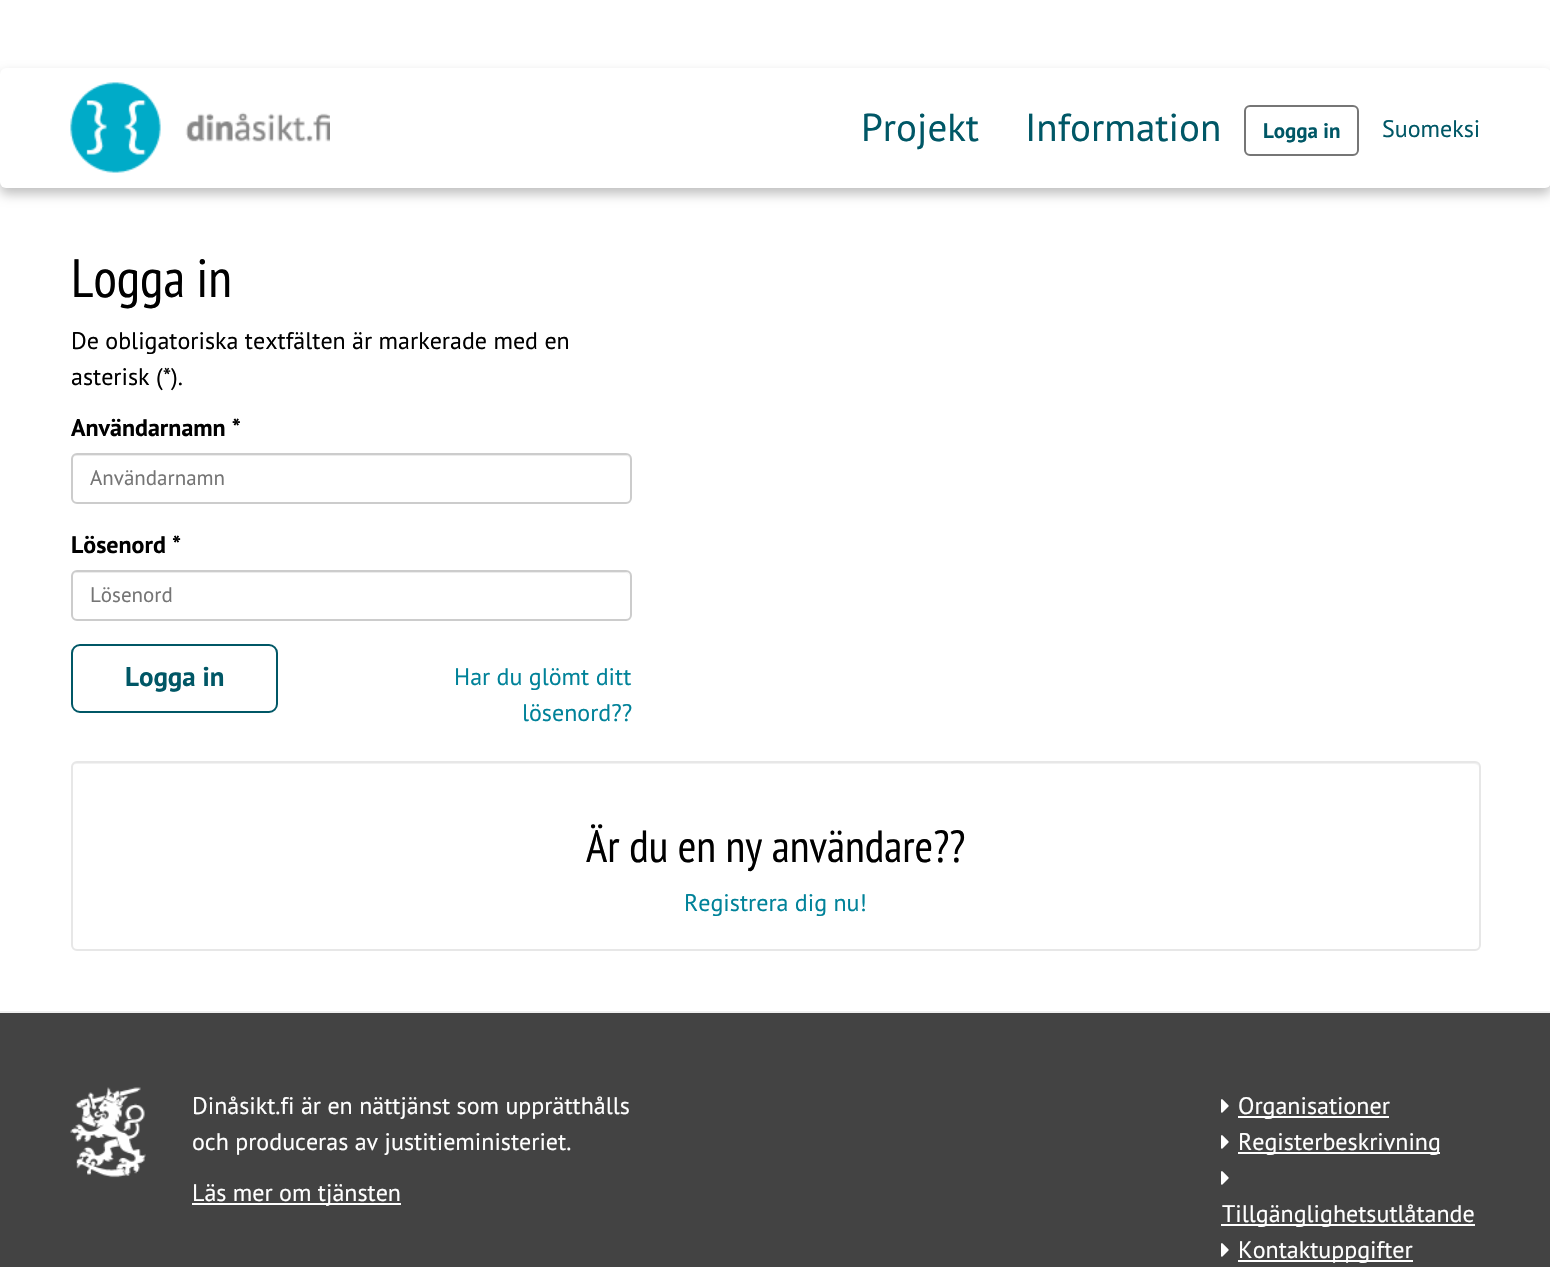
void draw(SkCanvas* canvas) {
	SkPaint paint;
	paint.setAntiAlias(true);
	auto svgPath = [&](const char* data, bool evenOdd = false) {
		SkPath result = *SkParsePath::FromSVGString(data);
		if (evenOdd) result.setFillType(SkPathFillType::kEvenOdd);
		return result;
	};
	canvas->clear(0xffffffff);
	paint.setColor(0x40000000);
	paint.setMaskFilter(SkMaskFilter::MakeBlur(kNormal_SkBlurStyle, 6));
	canvas->drawRoundRect(SkRect::MakeXYWH(0, 74, 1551, 120), 6, 6, paint);
	paint.setMaskFilter(nullptr);
	paint.setColor(0xffffffff);
	canvas->drawRoundRect(SkRect::MakeXYWH(0, 68, 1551, 120), 6, 6, paint);
	canvas->drawImageRect(SkImages::DeferredFromEncodedData(SkData::MakeFromFileName("img1.png")), SkRect::MakeXYWH(70, 82, 260, 91), SkSamplingOptions());
	SkFont f1(fontMgr->matchFamilyStyle("PT Sans", SkFontStyle::Normal()), 39);
	f1.setSubpixel(true);
	paint.setColor(0xff005766);
	canvas->drawString("Projekt", 861, 141, f1, paint);
	canvas->drawString("Information", 1025, 141, f1, paint);
	paint.setStroke(true);
	paint.setStrokeWidth(2);
	paint.setColor(0xff767676);
	canvas->drawRoundRect(SkRect::MakeXYWH(1245, 106, 113, 49), 5, 5, paint);
	SkFont f2(fontMgr->matchFamilyStyle("PT Sans", SkFontStyle::Bold()), 21);
	f2.setSubpixel(true);
	paint.setStroke(false);
	paint.setColor(0xff005766);
	canvas->drawString("Logga in", 1263, 138, f2, paint);
	SkFont f3(fontMgr->matchFamilyStyle("PT Sans", SkFontStyle::Normal()), 24);
	f3.setSubpixel(true);
	canvas->drawString("Suomeksi", 1382, 137, f3, paint);
	SkFont f4(fontMgr->matchFamilyStyle("PT Sans Narrow", SkFontStyle::Normal()), 54);
	f4.setSubpixel(true);
	paint.setColor(0xff000000);
	canvas->drawString("Logga in", 71, 297, f4, paint);
	canvas->drawString("De obligatoriska textfälten är markerade med en", 71, 349, f3, paint);
	canvas->drawString("asterisk (*).", 71, 385, f3, paint);
	SkFont f5(fontMgr->matchFamilyStyle("PT Sans", SkFontStyle::Bold()), 24);
	f5.setSubpixel(true);
	canvas->drawString("Användarnamn *", 71, 436, f5, paint);
	paint.setColor(0xffececec);
	canvas->drawPath(svgPath("M76 456H626C628 456 630 458 630 460C630 457 628 455 625 455H77C74 455 72 457 72 460C72 458 74 456 76 456Z"), paint);
	paint.setStroke(true);
	paint.setColor(0xffcccccc);
	canvas->drawRoundRect(SkRect::MakeXYWH(72, 454, 559, 49), 5, 5, paint);
	SkFont f6(fontMgr->matchFamilyStyle("PT Sans", SkFontStyle::Normal()), 21);
	f6.setSubpixel(true);
	paint.setStroke(false);
	paint.setColor(0xff757575);
	canvas->drawString("Användarnamn", 90, 485, f6, paint);
	paint.setColor(0xff000000);
	canvas->drawString("Lösenord *", 71, 553, f5, paint);
	paint.setColor(0xffececec);
	canvas->drawPath(svgPath("M76 573H626C628 573 630 575 630 578C630 575 628 572 625 572H77C74 572 72 575 72 578C72 575 74 573 76 573Z"), paint);
	paint.setStroke(true);
	paint.setColor(0xffcccccc);
	canvas->drawRoundRect(SkRect::MakeXYWH(72, 571, 559, 49), 5, 5, paint);
	paint.setStroke(false);
	paint.setColor(0xff757575);
	canvas->drawString("Lösenord", 90, 602, f6, paint);
	paint.setStroke(true);
	paint.setColor(0xff005766);
	canvas->drawRoundRect(SkRect::MakeXYWH(72, 645, 205, 67), 8, 8, paint);
	SkFont f7(fontMgr->matchFamilyStyle("PT Sans", SkFontStyle::Bold()), 27);
	f7.setSubpixel(true);
	paint.setStroke(false);
	canvas->drawString("Logga in", 125, 686, f7, paint);
	paint.setColor(0xff008299);
	canvas->drawString("Har du glömt ditt", 454, 685, f3, paint);
	canvas->drawString("lösenord?\077", 522, 721, f3, paint);
	paint.setColor(0xfff2f2f2);
	canvas->drawPath(svgPath("M76 764H1474C1477 764 1479 766 1479 768C1479 765 1477 762 1474 762H77C74 762 72 765 72 768C72 766 74 764 76 764Z"), paint);
	paint.setStroke(true);
	paint.setColor(0xffe7e7e7);
	canvas->drawRoundRect(SkRect::MakeXYWH(72, 762, 1408, 188), 5, 5, paint);
	SkFont f8(fontMgr->matchFamilyStyle("PT Sans Narrow", SkFontStyle::Normal()), 45);
	f8.setSubpixel(true);
	paint.setStroke(false);
	paint.setColor(0xff000000);
	canvas->drawString("Är du en ny användare?\077", 586, 862, f8, paint);
	paint.setColor(0xff008299);
	canvas->drawString("Registrera dig nu!", 684, 911, f3, paint);
	paint.setColor(0xff434343);
	canvas->drawRect(SkRect::MakeXYWH(0, 1013, 1550, 254), paint);
	paint.setColor(0xfff0f0f0);
	canvas->drawRect(SkRect::MakeXYWH(0, 1011, 1550, 2), paint);
	canvas->drawImageRect(SkImages::DeferredFromEncodedData(SkData::MakeFromFileName("img2.png")), SkRect::MakeXYWH(70, 1087, 76, 91), SkSamplingOptions());
	paint.setColor(0xffffffff);
	canvas->drawString("Dinåsikt.fi är en nättjänst som upprätthålls", 192, 1114, f3, paint);
	canvas->drawString("och produceras av justitieministeriet.", 192, 1150, f3, paint);
	canvas->drawRect(SkRect::MakeXYWH(192, 1203, 209, 2), paint);
	canvas->drawString("Läs mer om tjänsten", 192, 1201, f3, paint);
	canvas->drawImageRect(SkImages::DeferredFromEncodedData(SkData::MakeFromFileName("img3.png")), SkRect::MakeXYWH(1221, 1099, 8, 14), SkSamplingOptions());
	canvas->drawRect(SkRect::MakeXYWH(1238, 1116, 151, 2), paint);
	canvas->drawString("Organisationer", 1238, 1114, f3, paint);
	canvas->drawImageRect(SkImages::DeferredFromEncodedData(SkData::MakeFromFileName("img3.png")), SkRect::MakeXYWH(1221, 1135, 8, 14), SkSamplingOptions());
	canvas->drawRect(SkRect::MakeXYWH(1238, 1152, 202, 2), paint);
	canvas->drawString("Registerbeskrivning", 1238, 1150, f3, paint);
	canvas->drawImageRect(SkImages::DeferredFromEncodedData(SkData::MakeFromFileName("img3.png")), SkRect::MakeXYWH(1221, 1171, 8, 14), SkSamplingOptions());
	canvas->drawRect(SkRect::MakeXYWH(1221, 1224, 254, 2), paint);
	canvas->drawString("Tillgänglighetsutlåtande", 1222, 1222, f3, paint);
	canvas->drawImageRect(SkImages::DeferredFromEncodedData(SkData::MakeFromFileName("img3.png")), SkRect::MakeXYWH(1221, 1243, 8, 14), SkSamplingOptions());
	canvas->drawRect(SkRect::MakeXYWH(1238, 1260, 175, 2), paint);
	canvas->drawString("Kontaktuppgifter", 1238, 1258, f3, paint);
}
